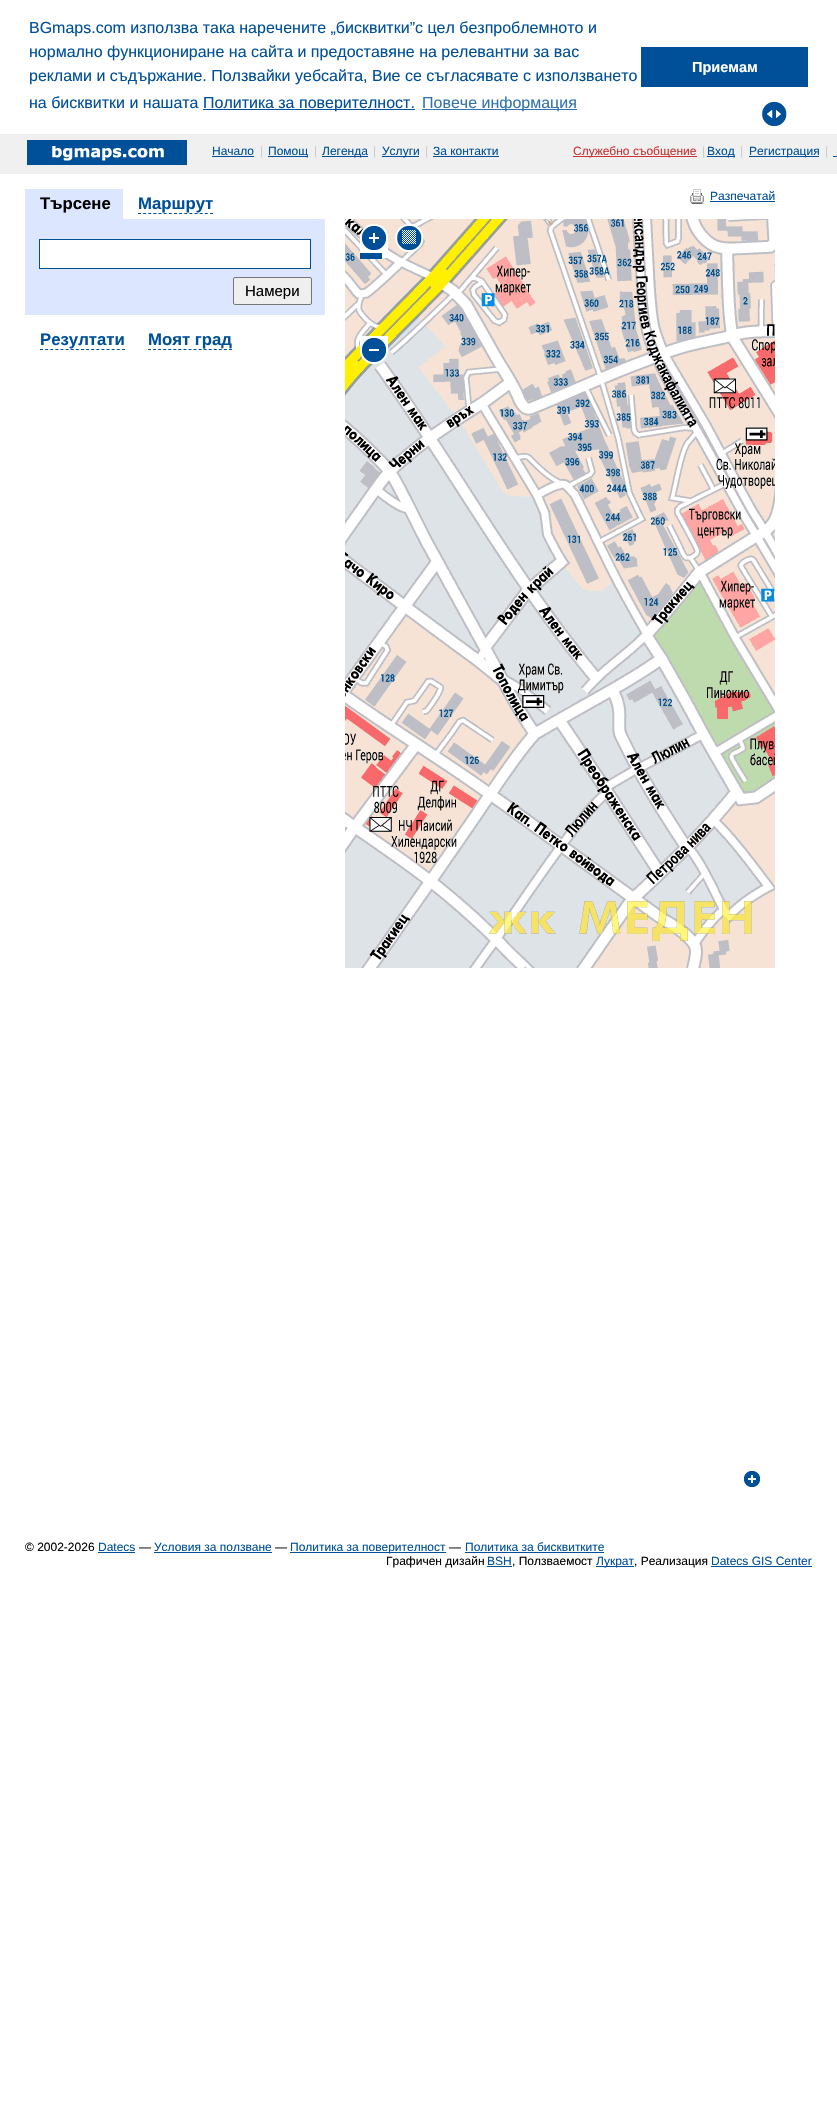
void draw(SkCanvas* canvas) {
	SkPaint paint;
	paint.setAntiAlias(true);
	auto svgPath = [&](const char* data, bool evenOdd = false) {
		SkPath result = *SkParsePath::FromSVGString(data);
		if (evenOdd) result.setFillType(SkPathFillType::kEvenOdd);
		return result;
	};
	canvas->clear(0xffffffff);
	SkFont f1(fontMgr->matchFamilyStyle("Liberation Sans", SkFontStyle::Normal()), 16);
	f1.setSubpixel(true);
	paint.setColor(0xff005099);
	canvas->drawString("BGmaps.com използва така наречените „бисквитки”с цел безпроблемното и", 29, 33, f1, paint);
	canvas->drawString("нормално функциониране на сайта и предоставяне на релевантни за вас", 29, 57, f1, paint);
	canvas->drawString("реклами и съдържание. Ползвайки уебсайта, Вие се съгласявате с използването", 29, 81, f1, paint);
	canvas->drawString("на бисквитки и нашата", 29, 108, f1, paint);
	canvas->drawRect(SkRect::MakeXYWH(203, 109, 212, 1), paint);
	canvas->drawString("Политика за поверителност.", 203, 108, f1, paint);
	paint.setColor(0xff3373ad);
	canvas->drawRect(SkRect::MakeXYWH(422, 109, 155, 1), paint);
	canvas->drawString("Повече информация", 422, 108, f1, paint);
	paint.setColor(0xff005099);
	canvas->drawRect(SkRect::MakeXYWH(641, 47, 167, 40), paint);
	SkFont f2(fontMgr->matchFamilyStyle("Liberation Sans", SkFontStyle::Bold()), 14.5);
	f2.setSubpixel(true);
	paint.setColor(0xffffffff);
	canvas->drawString("Приемам", 692, 72, f2, paint);
	paint.setColor(0xfff0f0f0);
	canvas->drawRect(SkRect::MakeXYWH(0, 134, 837, 40), paint);
	canvas->drawImageRect(SkImages::DeferredFromEncodedData(SkData::MakeFromFileName("img1.png")), SkRect::MakeXYWH(27, 140, 160, 25), SkSamplingOptions());
	SkFont f3(fontMgr->matchFamilyStyle("Liberation Sans", SkFontStyle::Normal()), 12);
	f3.setSubpixel(true);
	paint.setColor(0xff005099);
	canvas->drawString("Начало", 212, 155, f3, paint);
	canvas->drawRect(SkRect::MakeXYWH(212, 156, 42, 1), paint);
	paint.setColor(0xffcccccc);
	canvas->drawString("|", 260, 155, f3, paint);
	paint.setColor(0xff005099);
	canvas->drawRect(SkRect::MakeXYWH(268, 156, 40, 1), paint);
	canvas->drawString("Помощ", 268, 155, f3, paint);
	paint.setColor(0xffcccccc);
	canvas->drawString("|", 314, 155, f3, paint);
	paint.setColor(0xff005099);
	canvas->drawRect(SkRect::MakeXYWH(322, 156, 46, 1), paint);
	canvas->drawString("Легенда", 322, 155, f3, paint);
	paint.setColor(0xffcccccc);
	canvas->drawString("|", 373, 155, f3, paint);
	paint.setColor(0xff005099);
	canvas->drawRect(SkRect::MakeXYWH(382, 156, 37, 1), paint);
	canvas->drawString("Услуги", 382, 155, f3, paint);
	paint.setColor(0xffcccccc);
	canvas->drawString("|", 425, 155, f3, paint);
	paint.setColor(0xff005099);
	canvas->drawString("За контакти", 433, 155, f3, paint);
	canvas->drawRect(SkRect::MakeXYWH(433, 156, 66, 1), paint);
	paint.setColor(0xffcc3333);
	canvas->drawRect(SkRect::MakeXYWH(573, 156, 124, 1), paint);
	canvas->drawString("Служебно съобщение", 573, 155, f3, paint);
	paint.setColor(0xffcccccc);
	canvas->drawString("|", 702, 155, f3, paint);
	paint.setColor(0xff005099);
	canvas->drawRect(SkRect::MakeXYWH(707, 156, 28, 1), paint);
	canvas->drawString("Вход", 707, 155, f3, paint);
	paint.setColor(0xffcccccc);
	canvas->drawString("|", 740, 155, f3, paint);
	paint.setColor(0xff005099);
	canvas->drawRect(SkRect::MakeXYWH(749, 156, 70, 1), paint);
	canvas->drawString("Регистрация", 749, 155, f3, paint);
	paint.setColor(0xffcccccc);
	canvas->drawString("|", 825, 155, f3, paint);
	paint.setColor(0xff005099);
	canvas->drawRect(SkRect::MakeXYWH(833, 156, 4, 1), paint);
	canvas->drawImageRect(SkImages::DeferredFromEncodedData(SkData::MakeFromFileName("img2.png")), SkRect::MakeXYWH(762, 101, 25, 25), SkSamplingOptions());
	canvas->drawImageRect(SkImages::DeferredFromEncodedData(SkData::MakeFromFileName("img3.png")), SkRect::MakeXYWH(767, 110, 14, 8), SkSamplingOptions());
	canvas->drawImageRect(SkImages::DeferredFromEncodedData(SkData::MakeFromFileName("img4.png")), SkRect::MakeXYWH(690, 189, 15, 15), SkSamplingOptions());
	canvas->drawString("Разпечатай", 710, 200, f3, paint);
	canvas->drawRect(SkRect::MakeXYWH(710, 201, 65, 1), paint);
	paint.setColor(0xffdce6ff);
	canvas->drawRect(SkRect::MakeXYWH(25, 189, 98, 30), paint);
	SkFont f4(fontMgr->matchFamilyStyle("Liberation Sans", SkFontStyle::Bold()), 16.75);
	f4.setSubpixel(true);
	paint.setColor(0xff000000);
	canvas->drawString("Търсене", 40, 209, f4, paint);
	paint.setColor(0xff005099);
	canvas->drawString("Маршрут", 138, 209, f4, paint);
	paint.setStroke(true);
	paint.setStrokeWidth(1);
	paint.setPathEffect(SkDashPathEffect::Make({{3, 2.14f}}, 0));
	canvas->drawPath(svgPath("M138 213.5H213"), paint);
	paint.setPathEffect(nullptr);
	paint.setStroke(false);
	paint.setColor(0xffdce6ff);
	canvas->drawRect(SkRect::MakeXYWH(25, 219, 300, 96), paint);
	paint.setColor(0xffffffff);
	canvas->drawRect(SkRect::MakeXYWH(39.5, 239.5, 271, 29), paint);
	paint.setStroke(true);
	paint.setColor(0xff005099);
	canvas->drawRect(SkRect::MakeXYWH(39.5, 239.5, 271, 29), paint);
	paint.setStroke(false);
	paint.setColor(0xffefefef);
	canvas->drawRoundRect(SkRect::MakeXYWH(233.5, 277.5, 78, 27), 1.5, 1.5, paint);
	paint.setStroke(true);
	paint.setColor(0xff767676);
	canvas->drawRoundRect(SkRect::MakeXYWH(233.5, 277.5, 78, 27), 1.5, 1.5, paint);
	SkFont f5(fontMgr->matchFamilyStyle("Liberation Sans", SkFontStyle::Normal()), 15);
	f5.setSubpixel(true);
	paint.setStroke(false);
	paint.setColor(0xff000000);
	canvas->drawString("Намери", 245, 296, f5, paint);
	paint.setColor(0xff005099);
	canvas->drawString("Резултати", 40, 345, f4, paint);
	paint.setStroke(true);
	paint.setPathEffect(SkDashPathEffect::Make({{3, 2.12f}}, 0));
	canvas->drawPath(svgPath("M40 349.5H125"), paint);
	paint.setPathEffect(nullptr);
	paint.setStroke(false);
	canvas->drawString("Моят град", 148, 345, f4, paint);
	paint.setStroke(true);
	paint.setPathEffect(SkDashPathEffect::Make({{3, 2.06f}}, 0));
	canvas->drawPath(svgPath("M148 349.5H232"), paint);
	paint.setPathEffect(nullptr);
	canvas->drawImageRect(SkImages::DeferredFromEncodedData(SkData::MakeFromFileName("img5.png")), SkRect::MakeXYWH(345, 219, 133, 149), SkSamplingOptions());
	canvas->drawImageRect(SkImages::DeferredFromEncodedData(SkData::MakeFromFileName("img6.png")), SkRect::MakeXYWH(478, 219, 200, 149), SkSamplingOptions());
	canvas->drawImageRect(SkImages::DeferredFromEncodedData(SkData::MakeFromFileName("img7.png")), SkRect::MakeXYWH(678, 219, 97, 149), SkSamplingOptions());
	canvas->drawImageRect(SkImages::DeferredFromEncodedData(SkData::MakeFromFileName("img8.png")), SkRect::MakeXYWH(345, 368, 133, 200), SkSamplingOptions());
	canvas->drawImageRect(SkImages::DeferredFromEncodedData(SkData::MakeFromFileName("img9.png")), SkRect::MakeXYWH(478, 368, 200, 200), SkSamplingOptions());
	canvas->drawImageRect(SkImages::DeferredFromEncodedData(SkData::MakeFromFileName("img10.png")), SkRect::MakeXYWH(678, 368, 97, 200), SkSamplingOptions());
	canvas->drawImageRect(SkImages::DeferredFromEncodedData(SkData::MakeFromFileName("img11.png")), SkRect::MakeXYWH(345, 568, 133, 200), SkSamplingOptions());
	canvas->drawImageRect(SkImages::DeferredFromEncodedData(SkData::MakeFromFileName("img12.png")), SkRect::MakeXYWH(478, 568, 200, 200), SkSamplingOptions());
	canvas->drawImageRect(SkImages::DeferredFromEncodedData(SkData::MakeFromFileName("img13.png")), SkRect::MakeXYWH(678, 568, 97, 200), SkSamplingOptions());
	canvas->drawImageRect(SkImages::DeferredFromEncodedData(SkData::MakeFromFileName("img14.png")), SkRect::MakeXYWH(345, 768, 133, 200), SkSamplingOptions());
	canvas->drawImageRect(SkImages::DeferredFromEncodedData(SkData::MakeFromFileName("img15.png")), SkRect::MakeXYWH(478, 768, 200, 200), SkSamplingOptions());
	canvas->drawImageRect(SkImages::DeferredFromEncodedData(SkData::MakeFromFileName("img16.png")), SkRect::MakeXYWH(678, 768, 97, 200), SkSamplingOptions());
	canvas->drawImageRect(SkImages::DeferredFromEncodedData(SkData::MakeFromFileName("img17.png")), SkRect::MakeXYWH(360, 224, 28, 28), SkSamplingOptions());
	canvas->drawImageRect(SkImages::DeferredFromEncodedData(SkData::MakeFromFileName("img18.png")), SkRect::MakeXYWH(360, 252, 27, 6), SkSamplingOptions());
	paint.setStroke(false);
	canvas->drawRect(SkRect::MakeXYWH(360, 253, 22, 6), paint);
	canvas->drawImageRect(SkImages::DeferredFromEncodedData(SkData::MakeFromFileName("img19.png")), SkRect::MakeXYWH(360, 336, 28, 28), SkSamplingOptions());
	canvas->drawImageRect(SkImages::DeferredFromEncodedData(SkData::MakeFromFileName("img20.png")), SkRect::MakeXYWH(395, 224, 29, 28), SkSamplingOptions());
	canvas->drawImageRect(SkImages::DeferredFromEncodedData(SkData::MakeFromFileName("img21.png")), SkRect::MakeXYWH(402, 230, 14, 14), SkSamplingOptions());
	canvas->drawImageRect(SkImages::DeferredFromEncodedData(SkData::MakeFromFileName("img22.png")), SkRect::MakeXYWH(744, 1471, 16, 16), SkSamplingOptions());
	paint.setColor(0xff000000);
	canvas->drawString("© 2002-2026", 25, 1551, f3, paint);
	paint.setColor(0xff005099);
	canvas->drawString("Datecs", 98, 1551, f3, paint);
	canvas->drawRect(SkRect::MakeXYWH(98, 1552, 37, 1), paint);
	paint.setColor(0xff000000);
	canvas->drawString("—", 139, 1551, f3, paint);
	paint.setColor(0xff005099);
	canvas->drawString("Условия за ползване", 154, 1551, f3, paint);
	canvas->drawRect(SkRect::MakeXYWH(154, 1552, 118, 1), paint);
	paint.setColor(0xff000000);
	canvas->drawString("—", 275, 1551, f3, paint);
	paint.setColor(0xff005099);
	canvas->drawRect(SkRect::MakeXYWH(290, 1552, 156, 1), paint);
	canvas->drawString("Политика за поверителност", 290, 1551, f3, paint);
	paint.setColor(0xff000000);
	canvas->drawString("—", 449, 1551, f3, paint);
	paint.setColor(0xff005099);
	canvas->drawString("Политика за бисквитките", 465, 1551, f3, paint);
	canvas->drawRect(SkRect::MakeXYWH(465, 1552, 139, 1), paint);
	paint.setColor(0xff000000);
	canvas->drawString("Графичен дизайн", 386, 1565, f3, paint);
	paint.setColor(0xff005099);
	canvas->drawString("BSH", 487, 1565, f3, paint);
	canvas->drawRect(SkRect::MakeXYWH(487, 1566, 25, 1), paint);
	paint.setColor(0xff000000);
	canvas->drawString(", Ползваемост", 512, 1565, f3, paint);
	paint.setColor(0xff005099);
	canvas->drawRect(SkRect::MakeXYWH(596, 1566, 38, 1), paint);
	canvas->drawString("Лукрат", 596, 1565, f3, paint);
	paint.setColor(0xff000000);
	canvas->drawString(", Реализация", 634, 1565, f3, paint);
	paint.setColor(0xff005099);
	canvas->drawString("Datecs GIS Center", 711, 1565, f3, paint);
	canvas->drawRect(SkRect::MakeXYWH(711, 1566, 101, 1), paint);
}
